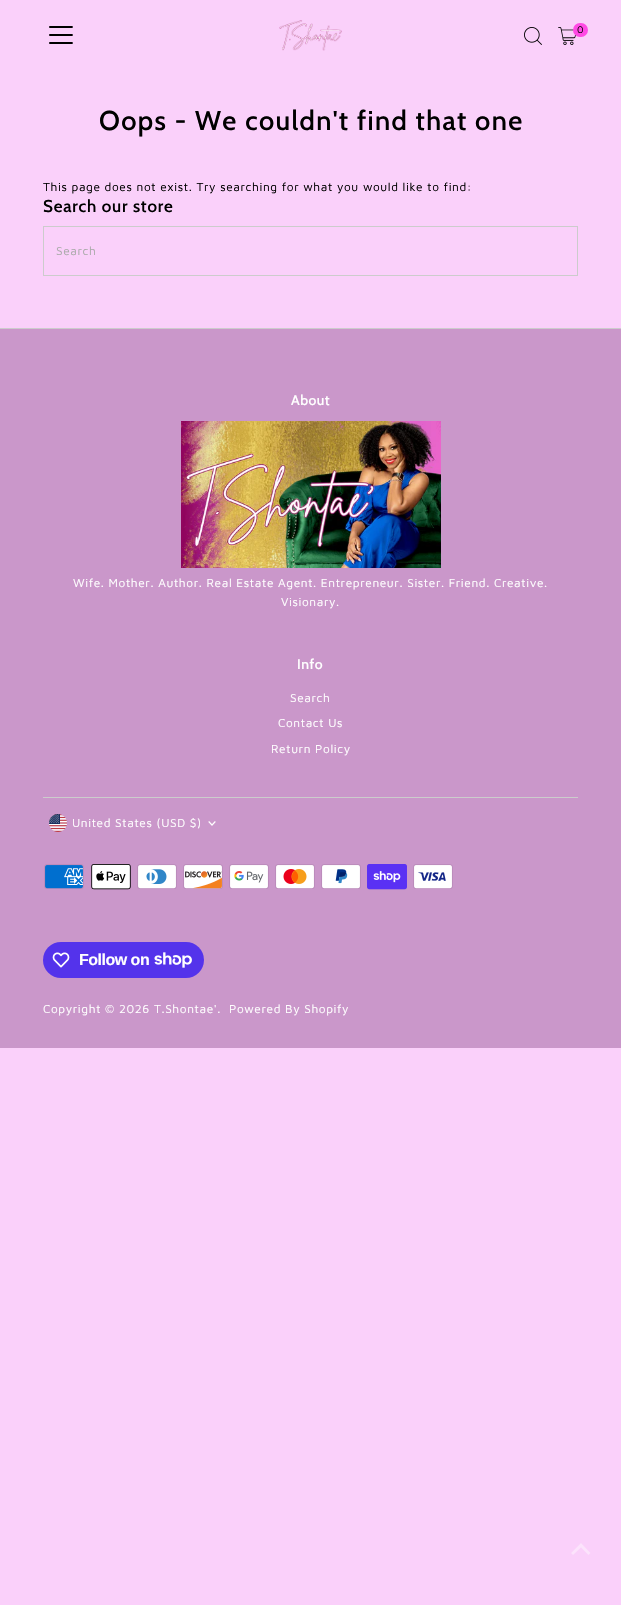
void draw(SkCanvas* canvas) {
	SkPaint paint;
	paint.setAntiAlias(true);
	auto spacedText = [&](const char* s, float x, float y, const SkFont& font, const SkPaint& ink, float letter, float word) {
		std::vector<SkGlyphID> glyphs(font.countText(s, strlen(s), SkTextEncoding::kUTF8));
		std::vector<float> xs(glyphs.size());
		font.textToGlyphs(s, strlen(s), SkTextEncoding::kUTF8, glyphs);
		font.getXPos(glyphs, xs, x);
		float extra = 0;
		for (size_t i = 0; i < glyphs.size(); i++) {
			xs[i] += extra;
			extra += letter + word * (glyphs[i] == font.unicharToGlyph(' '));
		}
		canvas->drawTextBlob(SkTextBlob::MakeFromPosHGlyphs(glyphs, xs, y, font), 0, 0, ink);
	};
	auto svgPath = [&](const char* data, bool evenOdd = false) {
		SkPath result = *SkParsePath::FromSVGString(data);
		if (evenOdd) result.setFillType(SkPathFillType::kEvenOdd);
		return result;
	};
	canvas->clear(0xfffad0fa);
	canvas->drawImageRect(SkImages::DeferredFromEncodedData(SkData::MakeFromFileName("img1.png")), SkRect::MakeXYWH(49, 26, 24, 18), SkSamplingOptions());
	canvas->drawImageRect(SkImages::DeferredFromEncodedData(SkData::MakeFromFileName("img2.png")), SkRect::MakeXYWH(279, 20, 63, 31), SkSamplingOptions());
	canvas->drawImageRect(SkImages::DeferredFromEncodedData(SkData::MakeFromFileName("img3.png")), SkRect::MakeXYWH(524, 27, 18, 18), SkSamplingOptions());
	canvas->drawImageRect(SkImages::DeferredFromEncodedData(SkData::MakeFromFileName("img4.png")), SkRect::MakeXYWH(558, 27, 18, 18), SkSamplingOptions());
	paint.setColor(0xffff49e4);
	canvas->drawRoundRect(SkRect::MakeXYWH(573, 23, 15, 14), 7, 7, paint);
	SkFont f1(fontMgr->matchFamilyStyle("Maven Pro", SkFontStyle::Normal()), 10);
	f1.setSubpixel(true);
	paint.setColor(0xff000000);
	spacedText("0", 577, 33, f1, paint, 0.6, 0);
	SkFont f2(fontMgr->matchFamilyStyle("Cabin", SkFontStyle(500, SkFontStyle::kNormal_Width, SkFontStyle::kUpright_Slant)), 27.25);
	f2.setSubpixel(true);
	spacedText("Oops - We couldn't find that one", 99, 130, f2, paint, 1.35, 0);
	SkFont f3(fontMgr->matchFamilyStyle("Maven Pro", SkFontStyle::Normal()), 11.9);
	f3.setSubpixel(true);
	spacedText("This page does not exist. Try searching for what you would like to find:", 43, 191, f3, paint, 0.6, 0);
	SkFont f4(fontMgr->matchFamilyStyle("Cabin", SkFontStyle(500, SkFontStyle::kNormal_Width, SkFontStyle::kUpright_Slant)), 17);
	f4.setSubpixel(true);
	spacedText("Search our store", 43, 212, f4, paint, 0.8, 0);
	paint.setStroke(true);
	paint.setStrokeWidth(1);
	paint.setColor(0xffcccccc);
	canvas->drawRect(SkRect::MakeXYWH(43.5, 226.5, 534, 49), paint);
	paint.setStroke(false);
	paint.setColor(0xffaaaaaa);
	spacedText("Search", 56, 255, f3, paint, 0.6, 0);
	paint.setColor(0xffca97ca);
	canvas->drawRect(SkRect::MakeXYWH(0, 329, 621, 719), paint);
	paint.setColor(0xffcccccc);
	canvas->drawRect(SkRect::MakeXYWH(0, 328, 621, 1), paint);
	SkFont f5(fontMgr->matchFamilyStyle("Cabin", SkFontStyle(500, SkFontStyle::kNormal_Width, SkFontStyle::kUpright_Slant)), 14);
	f5.setSubpixel(true);
	paint.setColor(0xffffffff);
	spacedText("About", 291, 405, f5, paint, 0.5, 0);
	canvas->drawImageRect(SkImages::DeferredFromEncodedData(SkData::MakeFromFileName("img5.png")), SkRect::MakeXYWH(181, 421, 260, 147), SkSamplingOptions());
	spacedText("Wife. Mother. Author. Real Estate Agent. Entrepreneur. Sister. Friend. Creative.", 73, 587, f3, paint, 0.6, 0);
	spacedText("Visionary.", 281, 606, f3, paint, 0.6, 0);
	spacedText("Info", 297, 669, f5, paint, 0.5, 0);
	spacedText("Search", 290, 702, f3, paint, 0.6, 0);
	spacedText("Contact Us", 278, 727, f3, paint, 0.6, 0);
	spacedText("Return Policy", 271, 753, f3, paint, 0.6, 0);
	paint.setColor(0xffcccccc);
	canvas->drawRect(SkRect::MakeXYWH(43, 797, 535, 1), paint);
	canvas->drawImageRect(SkImages::DeferredFromEncodedData(SkData::MakeFromFileName("img6.png")), SkRect::MakeXYWH(49, 814, 18, 18), SkSamplingOptions());
	paint.setColor(0xffffffff);
	spacedText("United States (USD $)", 72, 827, f3, paint, 0.6, 0);
	canvas->drawImageRect(SkImages::DeferredFromEncodedData(SkData::MakeFromFileName("img7.png")), SkRect::MakeXYWH(208, 821, 8, 5), SkSamplingOptions());
	canvas->drawImageRect(SkImages::DeferredFromEncodedData(SkData::MakeFromFileName("img8.png")), SkRect::MakeXYWH(44, 864, 40, 25), SkSamplingOptions());
	canvas->drawImageRect(SkImages::DeferredFromEncodedData(SkData::MakeFromFileName("img9.png")), SkRect::MakeXYWH(91, 864, 40, 26), SkSamplingOptions());
	canvas->drawImageRect(SkImages::DeferredFromEncodedData(SkData::MakeFromFileName("img10.png")), SkRect::MakeXYWH(137, 864, 40, 25), SkSamplingOptions());
	canvas->drawImageRect(SkImages::DeferredFromEncodedData(SkData::MakeFromFileName("img11.png")), SkRect::MakeXYWH(183, 864, 40, 25), SkSamplingOptions());
	canvas->drawImageRect(SkImages::DeferredFromEncodedData(SkData::MakeFromFileName("img12.png")), SkRect::MakeXYWH(229, 864, 40, 25), SkSamplingOptions());
	canvas->drawImageRect(SkImages::DeferredFromEncodedData(SkData::MakeFromFileName("img13.png")), SkRect::MakeXYWH(275, 864, 40, 25), SkSamplingOptions());
	canvas->drawImageRect(SkImages::DeferredFromEncodedData(SkData::MakeFromFileName("img14.png")), SkRect::MakeXYWH(321, 864, 40, 25), SkSamplingOptions());
	canvas->drawImageRect(SkImages::DeferredFromEncodedData(SkData::MakeFromFileName("img15.png")), SkRect::MakeXYWH(367, 864, 40, 26), SkSamplingOptions());
	canvas->drawImageRect(SkImages::DeferredFromEncodedData(SkData::MakeFromFileName("img16.png")), SkRect::MakeXYWH(413, 864, 40, 25), SkSamplingOptions());
	paint.setColor(0xff5433eb);
	canvas->drawRoundRect(SkRect::MakeXYWH(43, 942, 161, 36), 18, 18, paint);
	canvas->drawImageRect(SkImages::DeferredFromEncodedData(SkData::MakeFromFileName("img17.png")), SkRect::MakeXYWH(52, 952, 18, 16), SkSamplingOptions());
	SkFont f6(fontMgr->matchFamilyStyle("Liberation Sans", SkFontStyle::Bold()), 16);
	f6.setSubpixel(true);
	paint.setColor(0xffffffff);
	spacedText("Follow on", 79, 965, f6, paint, -0.5, 0);
	canvas->drawImageRect(SkImages::DeferredFromEncodedData(SkData::MakeFromFileName("img18.png")), SkRect::MakeXYWH(154, 952, 38, 16), SkSamplingOptions());
	spacedText("Copyright © 2026 T.Shontae'.", 43, 1013, f3, paint, 0.6, 0);
	spacedText("Powered By Shopify", 229, 1013, f3, paint, 0.6, 0);
	paint.setColor(0xfffce3fc);
	canvas->drawPath(svgPath("M581 1543L571 1553L573 1555L581 1547.5L588.5 1555L590.5 1553Z"), paint);
}
